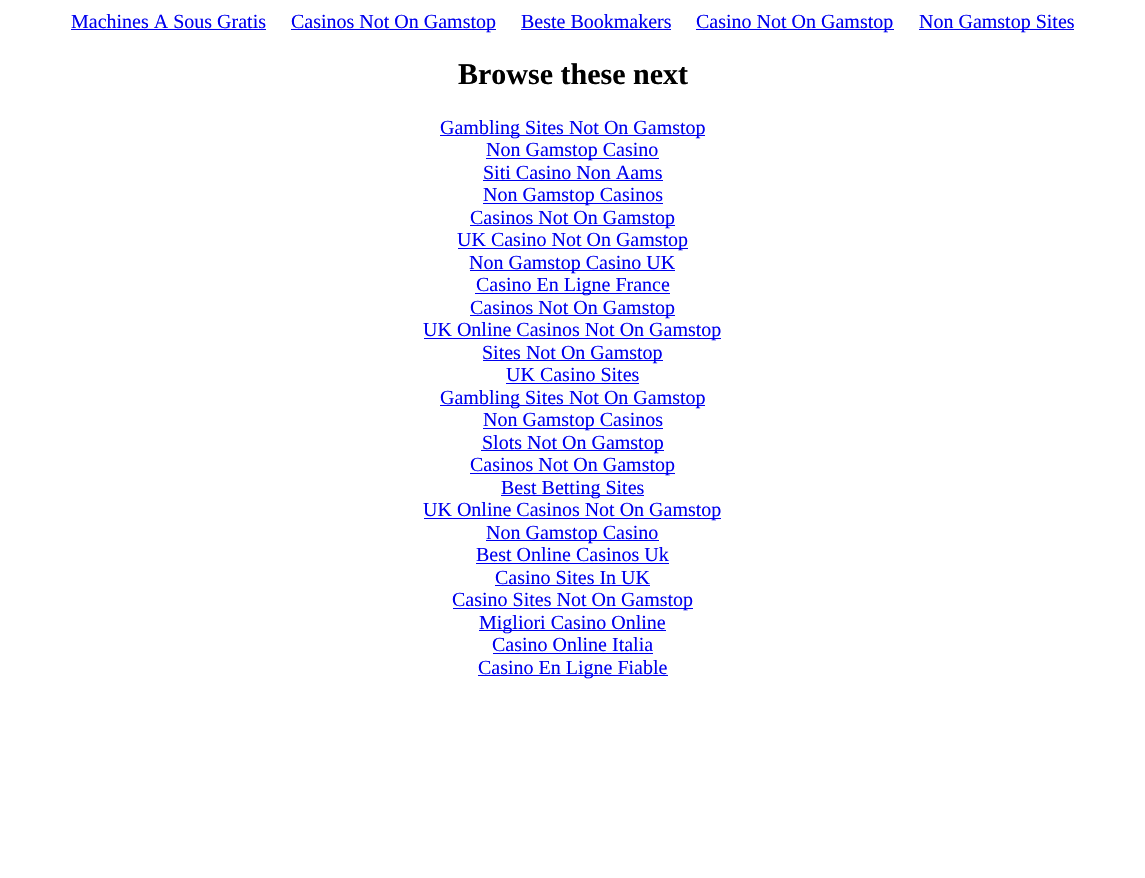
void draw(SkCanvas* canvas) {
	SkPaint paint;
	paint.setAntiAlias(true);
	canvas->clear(0xffffffff);
	SkFont f1(fontMgr->matchFamilyStyle("Liberation Serif", SkFontStyle::Normal()), 20);
	f1.setSubpixel(true);
	paint.setColor(0xff0000ee);
	canvas->drawString("Machines A Sous Gratis", 71, 28, f1, paint);
	canvas->drawRect(SkRect::MakeXYWH(71, 29, 195, 1), paint);
	canvas->drawRect(SkRect::MakeXYWH(291, 29, 205, 1), paint);
	canvas->drawString("Casinos Not On Gamstop", 291, 28, f1, paint);
	canvas->drawString("Beste Bookmakers", 521, 28, f1, paint);
	canvas->drawRect(SkRect::MakeXYWH(521, 29, 150, 1), paint);
	canvas->drawRect(SkRect::MakeXYWH(696, 29, 198, 1), paint);
	canvas->drawString("Casino Not On Gamstop", 696, 28, f1, paint);
	canvas->drawRect(SkRect::MakeXYWH(919, 29, 155, 1), paint);
	canvas->drawString("Non Gamstop Sites", 919, 28, f1, paint);
	SkFont f2(fontMgr->matchFamilyStyle("Liberation Serif", SkFontStyle::Bold()), 30);
	f2.setSubpixel(true);
	paint.setColor(0xff000000);
	canvas->drawString("Browse these next", 458, 84, f2, paint);
	paint.setColor(0xff0000ee);
	canvas->drawRect(SkRect::MakeXYWH(440, 135, 265, 1), paint);
	canvas->drawString("Gambling Sites Not On Gamstop", 440, 134, f1, paint);
	canvas->drawRect(SkRect::MakeXYWH(486, 158, 173, 1), paint);
	canvas->drawString("Non Gamstop Casino", 486, 156, f1, paint);
	canvas->drawString("Siti Casino Non Aams", 483, 179, f1, paint);
	canvas->drawRect(SkRect::MakeXYWH(483, 180, 180, 1), paint);
	canvas->drawRect(SkRect::MakeXYWH(483, 203, 180, 1), paint);
	canvas->drawString("Non Gamstop Casinos", 483, 201, f1, paint);
	canvas->drawRect(SkRect::MakeXYWH(470, 225, 205, 1), paint);
	canvas->drawString("Casinos Not On Gamstop", 470, 224, f1, paint);
	canvas->drawRect(SkRect::MakeXYWH(458, 248, 230, 1), paint);
	canvas->drawString("UK Casino Not On Gamstop", 457, 246, f1, paint);
	canvas->drawRect(SkRect::MakeXYWH(470, 270, 205, 1), paint);
	canvas->drawString("Non Gamstop Casino UK", 469, 269, f1, paint);
	canvas->drawRect(SkRect::MakeXYWH(475, 293, 195, 1), paint);
	canvas->drawString("Casino En Ligne France", 476, 291, f1, paint);
	canvas->drawRect(SkRect::MakeXYWH(470, 315, 205, 1), paint);
	canvas->drawString("Casinos Not On Gamstop", 470, 314, f1, paint);
	canvas->drawRect(SkRect::MakeXYWH(424, 338, 297, 1), paint);
	canvas->drawString("UK Online Casinos Not On Gamstop", 423, 336, f1, paint);
	canvas->drawRect(SkRect::MakeXYWH(483, 360, 180, 1), paint);
	canvas->drawString("Sites Not On Gamstop", 482, 359, f1, paint);
	canvas->drawString("UK Casino Sites", 506, 381, f1, paint);
	canvas->drawRect(SkRect::MakeXYWH(506, 383, 133, 1), paint);
	canvas->drawRect(SkRect::MakeXYWH(440, 405, 265, 1), paint);
	canvas->drawString("Gambling Sites Not On Gamstop", 440, 404, f1, paint);
	canvas->drawRect(SkRect::MakeXYWH(483, 428, 180, 1), paint);
	canvas->drawString("Non Gamstop Casinos", 483, 426, f1, paint);
	canvas->drawRect(SkRect::MakeXYWH(481, 450, 183, 1), paint);
	canvas->drawString("Slots Not On Gamstop", 482, 449, f1, paint);
	canvas->drawRect(SkRect::MakeXYWH(470, 473, 205, 1), paint);
	canvas->drawString("Casinos Not On Gamstop", 470, 471, f1, paint);
	canvas->drawRect(SkRect::MakeXYWH(501, 495, 143, 1), paint);
	canvas->drawString("Best Betting Sites", 501, 494, f1, paint);
	canvas->drawRect(SkRect::MakeXYWH(424, 518, 297, 1), paint);
	canvas->drawString("UK Online Casinos Not On Gamstop", 423, 516, f1, paint);
	canvas->drawRect(SkRect::MakeXYWH(486, 540, 173, 1), paint);
	canvas->drawString("Non Gamstop Casino", 486, 539, f1, paint);
	canvas->drawString("Best Online Casinos Uk", 476, 561, f1, paint);
	canvas->drawRect(SkRect::MakeXYWH(476, 563, 193, 1), paint);
	canvas->drawString("Casino Sites In UK", 495, 584, f1, paint);
	canvas->drawRect(SkRect::MakeXYWH(495, 585, 155, 1), paint);
	canvas->drawRect(SkRect::MakeXYWH(453, 608, 240, 1), paint);
	canvas->drawString("Casino Sites Not On Gamstop", 452, 606, f1, paint);
	canvas->drawRect(SkRect::MakeXYWH(479, 630, 187, 1), paint);
	canvas->drawString("Migliori Casino Online", 479, 629, f1, paint);
	canvas->drawString("Casino Online Italia", 492, 651, f1, paint);
	canvas->drawRect(SkRect::MakeXYWH(493, 653, 160, 1), paint);
	canvas->drawRect(SkRect::MakeXYWH(478, 675, 190, 1), paint);
	canvas->drawString("Casino En Ligne Fiable", 478, 674, f1, paint);
}
